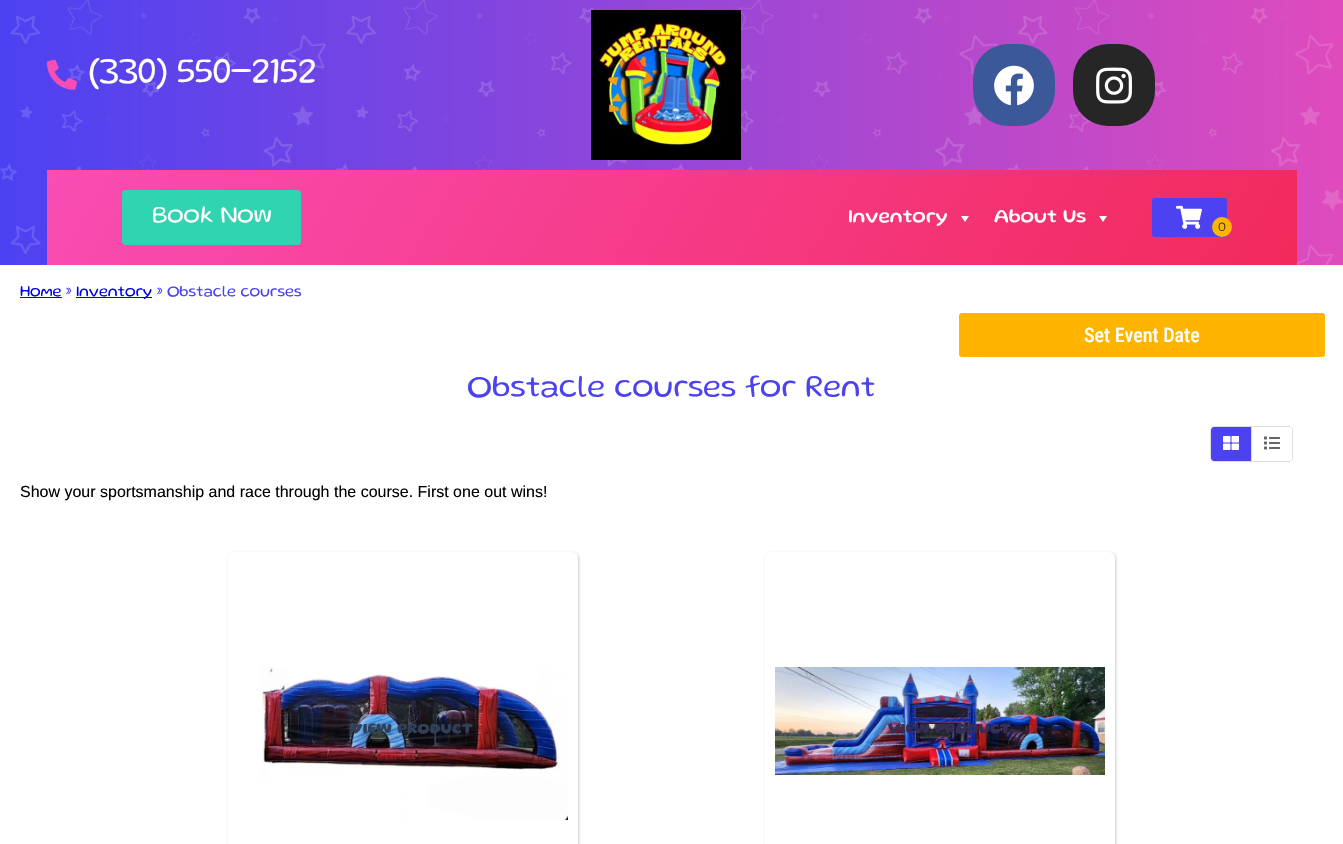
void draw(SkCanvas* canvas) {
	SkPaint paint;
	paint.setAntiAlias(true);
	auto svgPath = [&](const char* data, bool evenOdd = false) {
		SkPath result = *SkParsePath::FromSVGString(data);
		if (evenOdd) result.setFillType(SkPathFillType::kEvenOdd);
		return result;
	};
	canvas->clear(0xffffffff);
	{
		const SkColor colors[] = {0xff4c42f2, 0xffdf4bbd};
		const float stops[] = {0, 1};
		const SkPoint ends[] = {{0, 133}, {1343, 132}};
		paint.setShader(SkGradientShader::MakeLinear(ends, colors, stops, 2, SkTileMode::kClamp));
		paint.setAlpha(255);
	}
	canvas->drawRect(SkRect::MakeXYWH(0, 0, 1343, 265), paint);
	canvas->drawImageRect(SkImages::DeferredFromEncodedData(SkData::MakeFromFileName("img1.png")), SkRect::MakeXYWH(0, 0, 1343, 265), SkSamplingOptions());
	canvas->drawImageRect(SkImages::DeferredFromEncodedData(SkData::MakeFromFileName("img2.png")), SkRect::MakeXYWH(47, 59, 30, 31), SkSamplingOptions());
	SkFont f1(fontMgr->matchFamilyStyle("Gluten", SkFontStyle(300, SkFontStyle::kNormal_Width, SkFontStyle::kUpright_Slant)), 37);
	f1.setSubpixel(true);
	paint.setShader(nullptr);
	paint.setColor(0xffffffff);
	canvas->drawString("(330) 550-2152", 89, 82, f1, paint);
	canvas->drawImageRect(SkImages::DeferredFromEncodedData(SkData::MakeFromFileName("img3.png")), SkRect::MakeXYWH(591, 10, 150, 150), SkSamplingOptions());
	paint.setColor(0xff3b5998);
	canvas->drawRoundRect(SkRect::MakeXYWH(973, 44, 82, 82), 35, 35, paint);
	canvas->drawImageRect(SkImages::DeferredFromEncodedData(SkData::MakeFromFileName("img4.png")), SkRect::MakeXYWH(994, 65, 40, 41), SkSamplingOptions());
	paint.setColor(0xff262626);
	canvas->drawRoundRect(SkRect::MakeXYWH(1073, 44, 82, 82), 35, 35, paint);
	canvas->drawImageRect(SkImages::DeferredFromEncodedData(SkData::MakeFromFileName("img5.png")), SkRect::MakeXYWH(1096, 67, 36, 37), SkSamplingOptions());
	{
		const SkColor colors[] = {0xfff94db4, 0xfff2295b};
		const float stops[] = {0, 1};
		const SkPoint ends[] = {{183, -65}, {1161, 500}};
		paint.setShader(SkGradientShader::MakeLinear(ends, colors, stops, 2, SkTileMode::kClamp));
		paint.setAlpha(255);
	}
	canvas->drawRect(SkRect::MakeXYWH(47, 170, 1250, 95), paint);
	paint.setShader(nullptr);
	paint.setColor(0xff31d4b0);
	canvas->drawRoundRect(SkRect::MakeXYWH(122, 190, 179, 55), 4, 4, paint);
	SkFont f2(fontMgr->matchFamilyStyle("Gluten", SkFontStyle(300, SkFontStyle::kNormal_Width, SkFontStyle::kUpright_Slant)), 25);
	f2.setSubpixel(true);
	paint.setColor(0xffffffff);
	canvas->drawString("Book Now", 152, 222, f2, paint);
	SkFont f3(fontMgr->matchFamilyStyle("Gluten", SkFontStyle::Normal()), 20);
	f3.setSubpixel(true);
	canvas->drawString("Inventory", 848, 222, f3, paint);
	canvas->drawPath(svgPath("M969 216L965 222L961 216Z"), paint);
	canvas->drawString("About Us", 994, 222, f3, paint);
	canvas->drawPath(svgPath("M1107 216L1103 222L1099 216Z"), paint);
	paint.setColor(0xff4c42f2);
	canvas->drawRoundRect(SkRect::MakeXYWH(1152, 198, 75, 39), 3, 3, paint);
	canvas->drawImageRect(SkImages::DeferredFromEncodedData(SkData::MakeFromFileName("img6.png")), SkRect::MakeXYWH(1176, 205, 26, 24), SkSamplingOptions());
	paint.setColor(0xffffb400);
	canvas->drawCircle(1222, 227, 10, paint);
	SkFont f4(fontMgr->matchFamilyStyle("Montserrat", SkFontStyle::Normal()), 12);
	f4.setSubpixel(true);
	paint.setColor(0xff2d2d2d);
	canvas->drawString("0", 1218, 231, f4, paint);
	SkFont f5(fontMgr->matchFamilyStyle("Gluten", SkFontStyle(300, SkFontStyle::kNormal_Width, SkFontStyle::kUpright_Slant)), 16);
	f5.setSubpixel(true);
	paint.setColor(0xff0000ee);
	canvas->drawString("Home", 20, 296, f5, paint);
	canvas->drawRect(SkRect::MakeXYWH(20, 297, 42, 1), paint);
	paint.setColor(0xff4c42f2);
	canvas->drawString("»", 66, 296, f5, paint);
	paint.setColor(0xff0000ee);
	canvas->drawRect(SkRect::MakeXYWH(76, 297, 76, 1), paint);
	canvas->drawString("Inventory", 76, 296, f5, paint);
	paint.setColor(0xff4c42f2);
	canvas->drawString("» Obstacle courses", 157, 296, f5, paint);
	paint.setColor(0xffffb400);
	canvas->drawRoundRect(SkRect::MakeXYWH(959, 313, 366, 44), 3, 3, paint);
	SkFont f6(fontMgr->matchFamilyStyle("Roboto Condensed", SkFontStyle(500, SkFontStyle::kNormal_Width, SkFontStyle::kUpright_Slant)), 20);
	f6.setSubpixel(true);
	paint.setColor(0xffffffff);
	canvas->drawString("Set Event Date", 1084, 342, f6, paint);
	SkFont f7(fontMgr->matchFamilyStyle("Gluten", SkFontStyle(300, SkFontStyle::kNormal_Width, SkFontStyle::kUpright_Slant)), 32);
	f7.setSubpixel(true);
	paint.setColor(0xff4c42f2);
	canvas->drawString("Obstacle courses for Rent", 467, 396, f7, paint);
	paint.setStroke(true);
	paint.setStrokeWidth(1);
	paint.setColor(0xffdddddd);
	canvas->drawRoundRect(SkRect::MakeXYWH(1210.5, 426.5, 82, 35), 3.5, 3.5, paint);
	paint.setStroke(false);
	paint.setColor(0xff4c42f2);
	canvas->drawPath(svgPath("M1214 427H1252V461H1214C1212.5 461 1211 459.5 1211 458V430C1211 428.5 1212.5 427 1214 427Z"), paint);
	paint.setColor(0xffdddddd);
	canvas->drawRect(SkRect::MakeXYWH(1251, 427, 1, 34), paint);
	canvas->drawImageRect(SkImages::DeferredFromEncodedData(SkData::MakeFromFileName("img7.png")), SkRect::MakeXYWH(1223, 436, 16, 14), SkSamplingOptions());
	paint.setColor(0xffffffff);
	canvas->drawPath(svgPath("M1252 427H1289C1290.5 427 1292 428.5 1292 430V458C1292 459.5 1290.5 461 1289 461H1252Z"), paint);
	canvas->drawImageRect(SkImages::DeferredFromEncodedData(SkData::MakeFromFileName("img8.png")), SkRect::MakeXYWH(1264, 436, 16, 14), SkSamplingOptions());
	SkFont f8(fontMgr->matchFamilyStyle("Liberation Sans", SkFontStyle::Normal()), 16);
	f8.setSubpixel(true);
	paint.setColor(0xff000000);
	canvas->drawString("Show your sportsmanship and race through the course. First one out wins!", 20, 497, f8, paint);
	paint.setColor(0x33000000);
	paint.setMaskFilter(SkMaskFilter::MakeBlur(kNormal_SkBlurStyle, 1.5));
	canvas->drawRoundRect(SkRect::MakeXYWH(229, 553, 350, 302), 6, 6, paint);
	paint.setMaskFilter(nullptr);
	paint.setColor(0xffffffff);
	canvas->drawRoundRect(SkRect::MakeXYWH(228, 552, 350, 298), 6, 6, paint);
	canvas->drawImageRect(SkImages::DeferredFromEncodedData(SkData::MakeFromFileName("img9.png")), SkRect::MakeXYWH(261, 667, 307, 153), SkSamplingOptions());
	SkFont f9(fontMgr->matchFamilyStyle("Gluten", SkFontStyle::Bold()), 15.25);
	f9.setSubpixel(true);
	paint.setColor(0xff2f4058);
	canvas->drawString("VIEW PRODUCT", 350, 733, f9, paint);
	paint.setColor(0x33000000);
	paint.setMaskFilter(SkMaskFilter::MakeBlur(kNormal_SkBlurStyle, 1.5));
	canvas->drawRoundRect(SkRect::MakeXYWH(766, 553, 350, 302), 6, 6, paint);
	paint.setMaskFilter(nullptr);
	paint.setColor(0xffffffff);
	canvas->drawRoundRect(SkRect::MakeXYWH(765, 552, 350, 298), 6, 6, paint);
	canvas->drawImageRect(SkImages::DeferredFromEncodedData(SkData::MakeFromFileName("img10.png")), SkRect::MakeXYWH(775, 667, 330, 108), SkSamplingOptions());
	paint.setColor(0xff372e56);
	canvas->drawString("VIEW PRODUCT", 888, 733, f9, paint);
}
